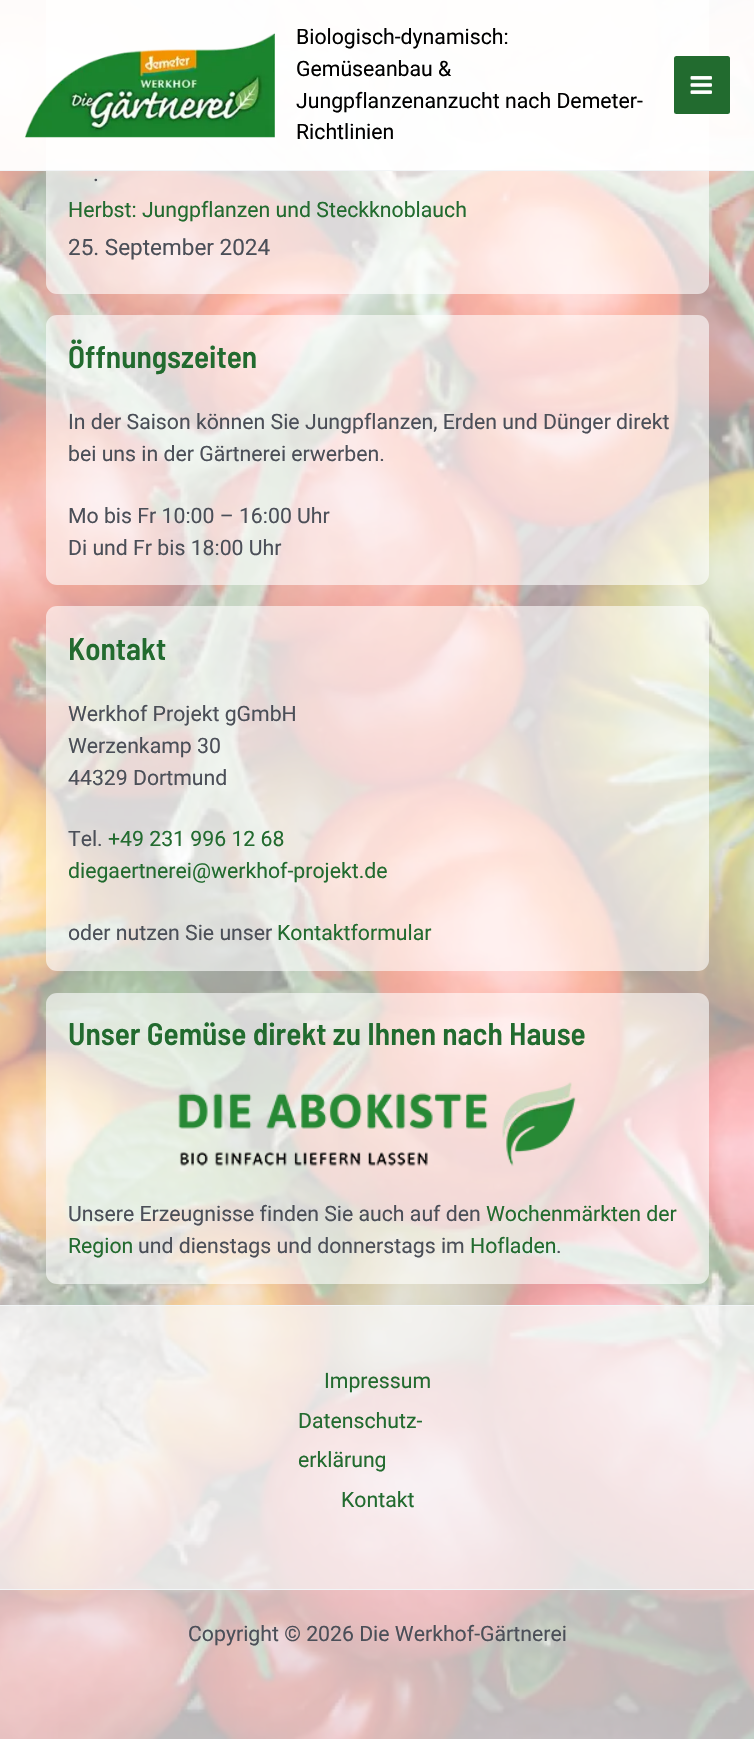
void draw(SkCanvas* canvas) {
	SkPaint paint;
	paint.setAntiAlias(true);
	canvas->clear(0xffffffff);
	canvas->drawImageRect(SkImages::DeferredFromEncodedData(SkData::MakeFromFileName("img1.png")), SkRect::MakeXYWH(0, 0, 754, 1739), SkSamplingOptions());
	paint.setColor(0x99ffffff);
	canvas->drawRect(SkRect::MakeXYWH(0, 0, 754, 1305), paint);
	canvas->drawRoundRect(SkRect::MakeXYWH(46, -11, 663, 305), 11, 11, paint);
	paint.setColor(0xf2ffffff);
	canvas->drawRect(SkRect::MakeXYWH(0, 0, 754, 170), paint);
	paint.setColor(0xfff2f5f7);
	canvas->drawRect(SkRect::MakeXYWH(0, 170, 754, 1), paint);
	canvas->drawImageRect(SkImages::DeferredFromEncodedData(SkData::MakeFromFileName("img2.png")), SkRect::MakeXYWH(25, 33, 250, 105), SkSamplingOptions());
	SkFont f1(fontMgr->matchFamilyStyle("Roboto", SkFontStyle::Normal()), 21.25);
	f1.setSubpixel(true);
	paint.setColor(0xff000000);
	canvas->drawString("Biologisch-dynamisch:", 296, 44, f1, paint);
	canvas->drawString("Gemüseanbau &", 296, 76, f1, paint);
	canvas->drawString("Jungpflanzenanzucht nach Demeter-", 296, 108, f1, paint);
	canvas->drawString("Richtlinien", 296, 139, f1, paint);
	paint.setColor(0xff226b2f);
	canvas->drawRoundRect(SkRect::MakeXYWH(674, 56, 56, 58), 2.5, 2.5, paint);
	canvas->drawImageRect(SkImages::DeferredFromEncodedData(SkData::MakeFromFileName("img3.png")), SkRect::MakeXYWH(690, 76, 22, 18), SkSamplingOptions());
	SkFont f2(fontMgr->matchFamilyStyle("Roboto", SkFontStyle::Normal()), 22.5);
	f2.setSubpixel(true);
	paint.setColor(0xff4b4f58);
	canvas->drawString(".", 93, 181, f2, paint);
	paint.setColor(0xff226b2f);
	canvas->drawString("Herbst: Jungpflanzen und Steckknoblauch", 68, 217, f1, paint);
	paint.setColor(0xff4b4f58);
	canvas->drawString("25. September 2024", 68, 255, f2, paint);
	paint.setColor(0x99ffffff);
	canvas->drawRoundRect(SkRect::MakeXYWH(46, 315, 663, 270), 11, 11, paint);
	SkFont f3(fontMgr->matchFamilyStyle("Barlow Semi Condensed", SkFontStyle(600, SkFontStyle::kNormal_Width, SkFontStyle::kUpright_Slant)), 31.25);
	f3.setSubpixel(true);
	paint.setColor(0xff226b2f);
	canvas->drawString("Öffnungszeiten", 68, 368, f3, paint);
	paint.setColor(0xff4b4f58);
	canvas->drawString("In der Saison können Sie Jungpflanzen, Erden und Dünger direkt", 68, 429, f1, paint);
	canvas->drawString("bei uns in der Gärtnerei erwerben.", 68, 461, f1, paint);
	canvas->drawString("Mo bis Fr 10:00 – 16:00 Uhr", 68, 523, f1, paint);
	canvas->drawString("Di und Fr bis 18:00 Uhr", 68, 555, f1, paint);
	paint.setColor(0x99ffffff);
	canvas->drawRoundRect(SkRect::MakeXYWH(46, 606, 663, 365), 11, 11, paint);
	paint.setColor(0xff226b2f);
	canvas->drawString("Kontakt", 68, 660, f3, paint);
	paint.setColor(0xff4b4f58);
	canvas->drawString("Werkhof Projekt gGmbH", 68, 721, f1, paint);
	canvas->drawString("Werzenkamp 30", 68, 753, f1, paint);
	canvas->drawString("44329 Dortmund", 68, 785, f1, paint);
	canvas->drawString("Tel.", 68, 846, f1, paint);
	paint.setColor(0xff226b2f);
	canvas->drawString("+49 231 996 12 68", 108, 846, f1, paint);
	canvas->drawString("diegaertnerei@werkhof-projekt.de", 68, 878, f1, paint);
	paint.setColor(0xff4b4f58);
	canvas->drawString("oder nutzen Sie unser", 68, 940, f1, paint);
	paint.setColor(0xff226b2f);
	canvas->drawString("Kontaktformular", 277, 940, f1, paint);
	paint.setColor(0x99ffffff);
	canvas->drawRoundRect(SkRect::MakeXYWH(46, 993, 663, 291), 11, 11, paint);
	paint.setColor(0xff226b2f);
	canvas->drawString("Unser Gemüse direkt zu Ihnen nach Hause", 68, 1045, f3, paint);
	canvas->drawImageRect(SkImages::DeferredFromEncodedData(SkData::MakeFromFileName("img4.png")), SkRect::MakeXYWH(178, 1082, 398, 85), SkSamplingOptions());
	paint.setColor(0xff4b4f58);
	canvas->drawString("Unsere Erzeugnisse finden Sie auch auf den", 68, 1221, f1, paint);
	paint.setColor(0xff226b2f);
	canvas->drawString("Wochenmärkten der", 486, 1221, f1, paint);
	canvas->drawString("Region", 68, 1253, f1, paint);
	paint.setColor(0xff4b4f58);
	canvas->drawString("und dienstags und donnerstags im", 138, 1253, f1, paint);
	paint.setColor(0xff226b2f);
	canvas->drawString("Hofladen", 470, 1253, f1, paint);
	paint.setColor(0xff4b4f58);
	canvas->drawString(".", 556, 1253, f1, paint);
	paint.setColor(0xe6fafafa);
	canvas->drawRect(SkRect::MakeXYWH(0, 1306, 754, 283), paint);
	paint.setColor(0xfff2f5f7);
	canvas->drawRect(SkRect::MakeXYWH(0, 1305, 754, 1), paint);
	paint.setColor(0xff226b2f);
	canvas->drawString("Impressum", 324, 1388, f1, paint);
	canvas->drawString("Datenschutz-", 298, 1428, f1, paint);
	canvas->drawString("erklärung", 298, 1467, f1, paint);
	canvas->drawString("Kontakt", 341, 1507, f1, paint);
	paint.setColor(0xb8ffffff);
	canvas->drawRect(SkRect::MakeXYWH(0, 1590, 754, 149), paint);
	paint.setColor(0xfff2f5f7);
	canvas->drawRect(SkRect::MakeXYWH(0, 1589, 754, 1), paint);
	paint.setColor(0xff4b4f58);
	canvas->drawString("Copyright © 2026 Die Werkhof-Gärtnerei", 188, 1641, f1, paint);
}
